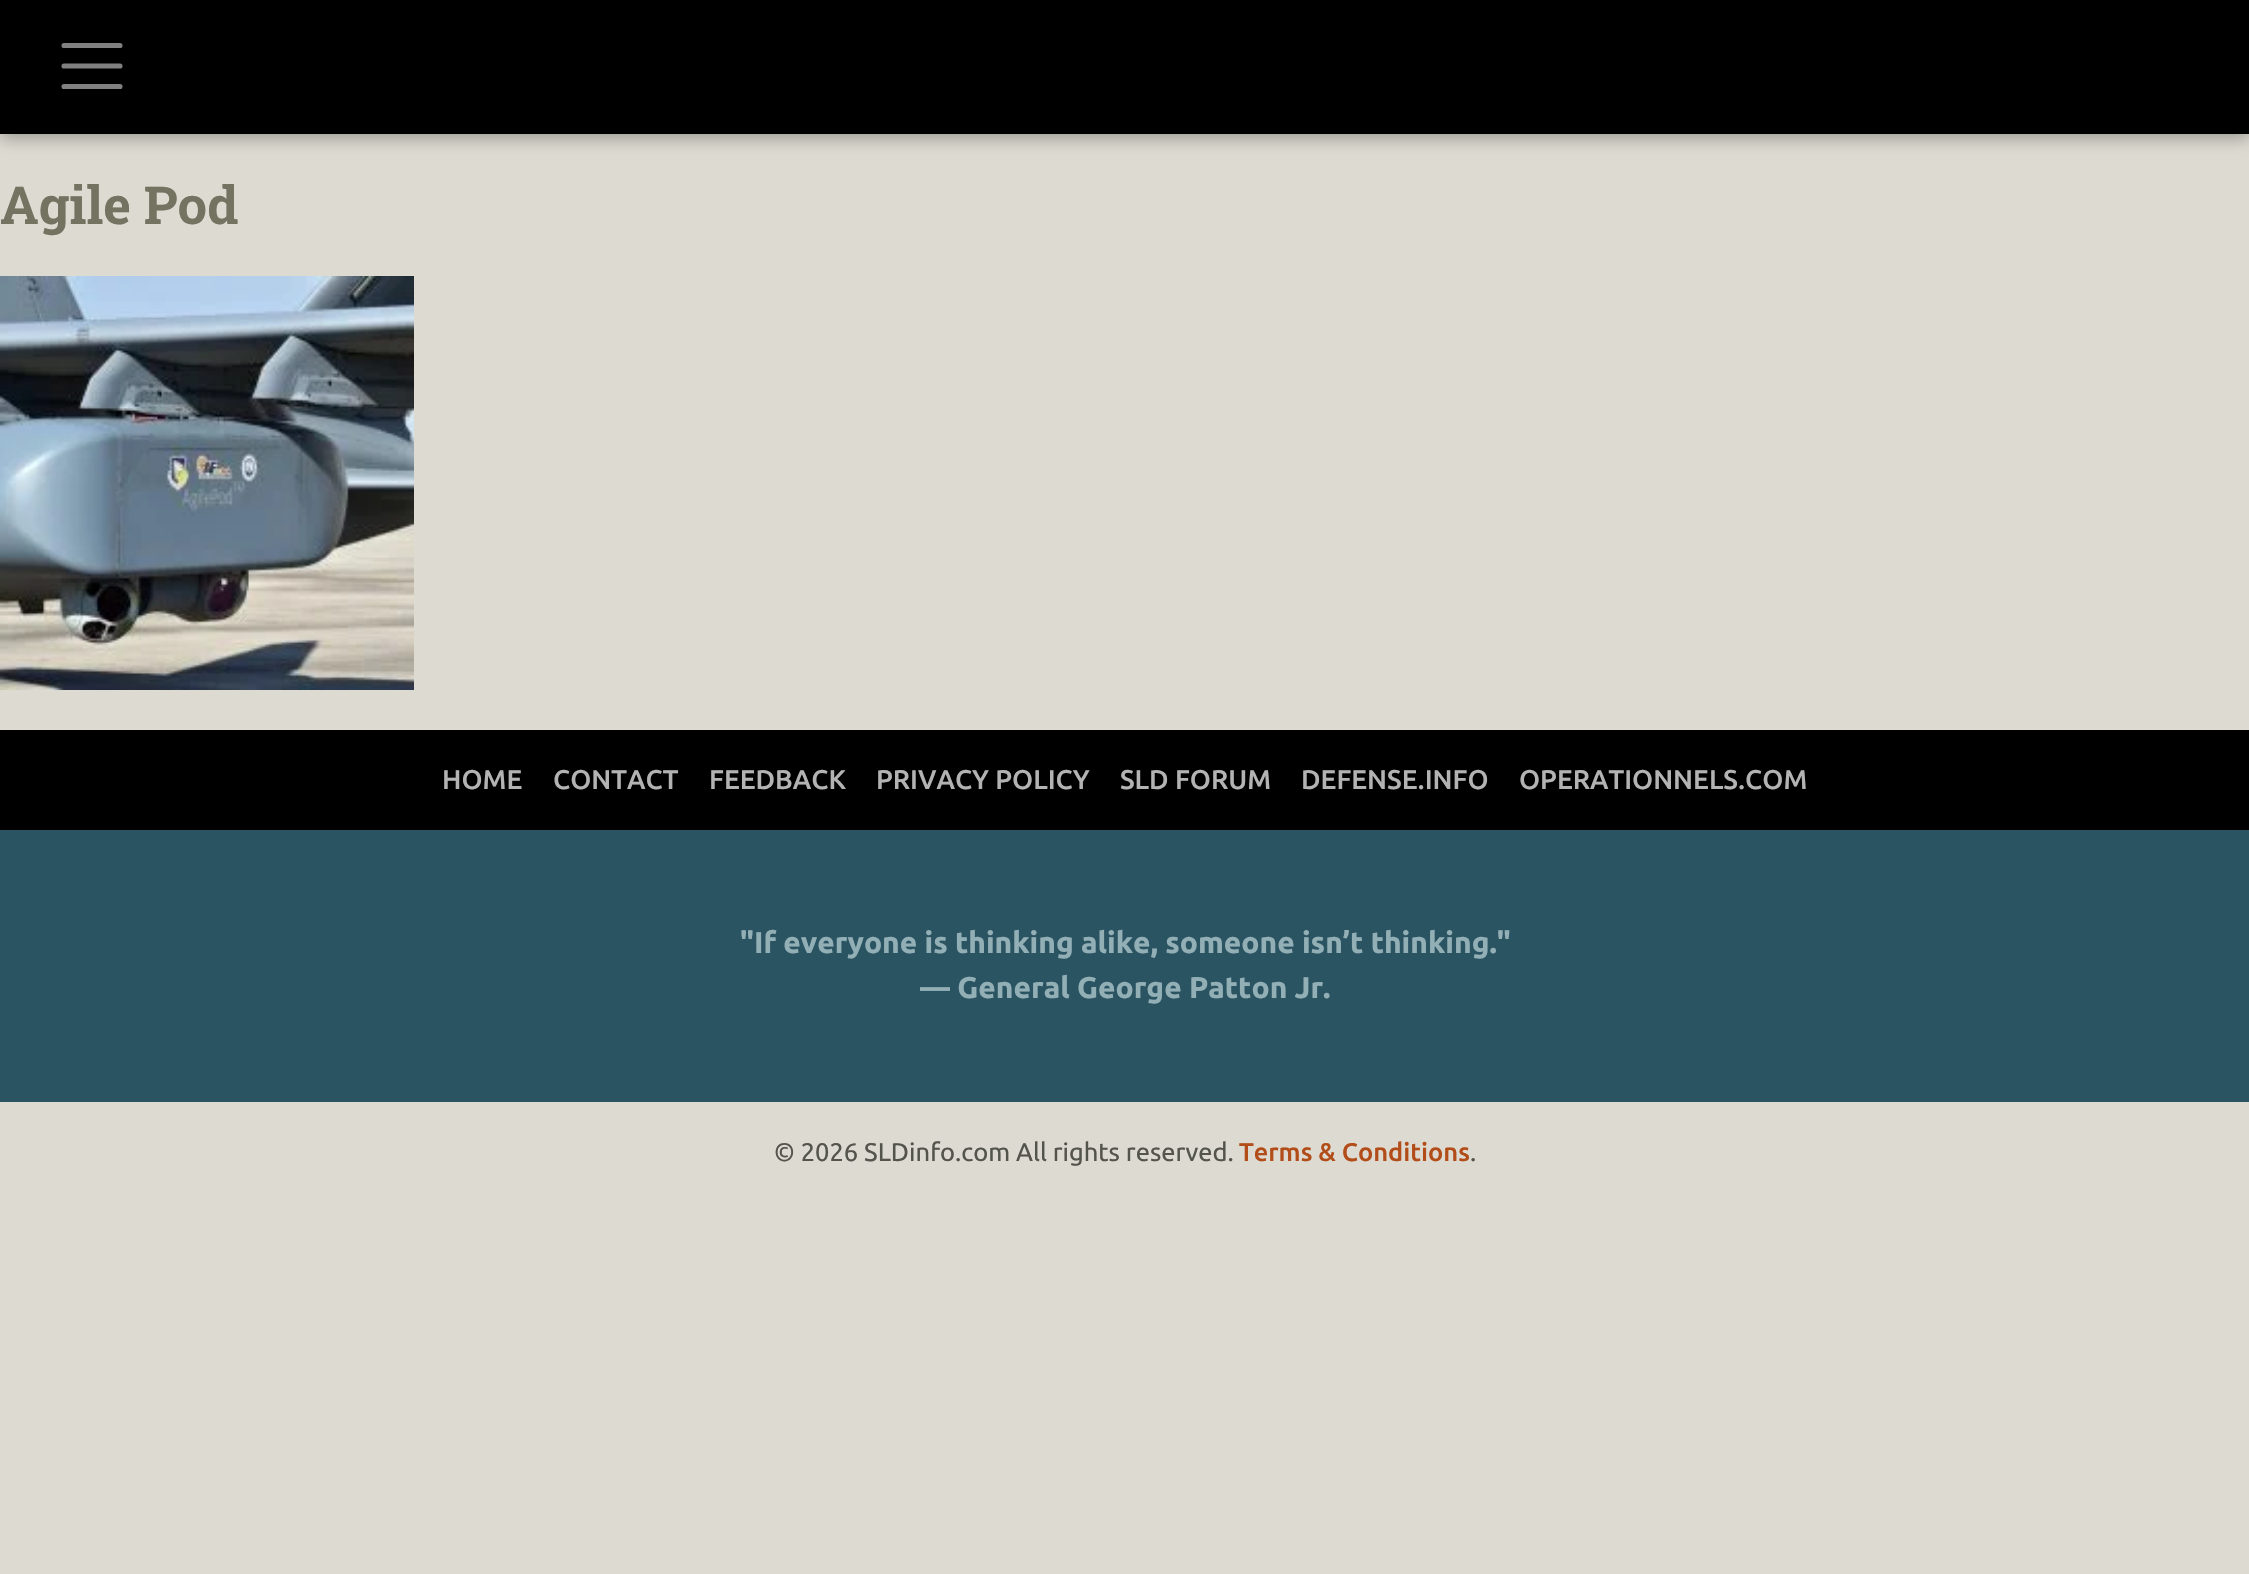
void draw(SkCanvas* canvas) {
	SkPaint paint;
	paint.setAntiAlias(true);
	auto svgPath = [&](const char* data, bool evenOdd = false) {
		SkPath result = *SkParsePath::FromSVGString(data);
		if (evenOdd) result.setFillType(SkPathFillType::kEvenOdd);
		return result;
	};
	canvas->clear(0xffdddad1);
	paint.setColor(0x54081013);
	paint.setMaskFilter(SkMaskFilter::MakeBlur(kNormal_SkBlurStyle, 8));
	canvas->drawRect(SkRect::MakeXYWH(0, 4, 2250, 134), paint);
	paint.setMaskFilter(nullptr);
	paint.setColor(0xff000000);
	canvas->drawRect(SkRect::MakeXYWH(0, 0, 2249, 134), paint);
	paint.setStroke(true);
	paint.setStrokeWidth(5.1);
	paint.setStrokeCap(SkPaint::kRound_Cap);
	paint.setColor(0xff808080);
	canvas->drawPath(svgPath("M64 45.5H120M64 66H120M64 86.5H120"), paint);
	SkFont f1(fontMgr->matchFamilyStyle("Roboto Slab", SkFontStyle::Bold()), 52.5);
	f1.setSubpixel(true);
	paint.setStroke(false);
	paint.setColor(0xff747260);
	canvas->drawString("Agile Pod", 0, 224, f1, paint);
	canvas->drawImageRect(SkImages::DeferredFromEncodedData(SkData::MakeFromFileName("img1.png")), SkRect::MakeXYWH(0, 276, 414, 414), SkSamplingOptions());
	paint.setColor(0xff000000);
	canvas->drawRect(SkRect::MakeXYWH(0, 730, 2249, 100), paint);
	SkFont f2(fontMgr->matchFamilyStyle("Ubuntu", SkFontStyle(500, SkFontStyle::kNormal_Width, SkFontStyle::kUpright_Slant)), 27);
	f2.setSubpixel(true);
	paint.setColor(0xffb3b3b3);
	canvas->drawString("HOME", 442, 789, f2, paint);
	canvas->drawString("CONTACT", 553, 789, f2, paint);
	canvas->drawString("FEEDBACK", 709, 789, f2, paint);
	canvas->drawString("PRIVACY POLICY", 876, 789, f2, paint);
	canvas->drawString("SLD FORUM", 1120, 789, f2, paint);
	canvas->drawString("DEFENSE.INFO", 1301, 789, f2, paint);
	canvas->drawString("OPERATIONNELS.COM", 1519, 789, f2, paint);
	paint.setColor(0xff2b5463);
	canvas->drawRect(SkRect::MakeXYWH(0, 830, 2249, 272), paint);
	SkFont f3(fontMgr->matchFamilyStyle("Ubuntu", SkFontStyle::Bold()), 30);
	f3.setSubpixel(true);
	paint.setColor(0xff93afb6);
	canvas->drawString("\"If everyone is thinking alike, someone isn’t thinking.\"", 740, 953, f3, paint);
	canvas->drawString("— General George Patton Jr.", 920, 998, f3, paint);
	SkFont f4(fontMgr->matchFamilyStyle("Ubuntu", SkFontStyle::Normal()), 25.5);
	f4.setSubpixel(true);
	paint.setColor(0xff53544c);
	canvas->drawString("© 2026 SLDinfo.com All rights reserved.", 774, 1161, f4, paint);
	SkFont f5(fontMgr->matchFamilyStyle("Ubuntu", SkFontStyle(500, SkFontStyle::kNormal_Width, SkFontStyle::kUpright_Slant)), 25.5);
	f5.setSubpixel(true);
	paint.setColor(0xffb24c18);
	canvas->drawString("Terms & Conditions", 1239, 1161, f5, paint);
	paint.setColor(0xff53544c);
	canvas->drawString(".", 1470, 1161, f4, paint);
}
